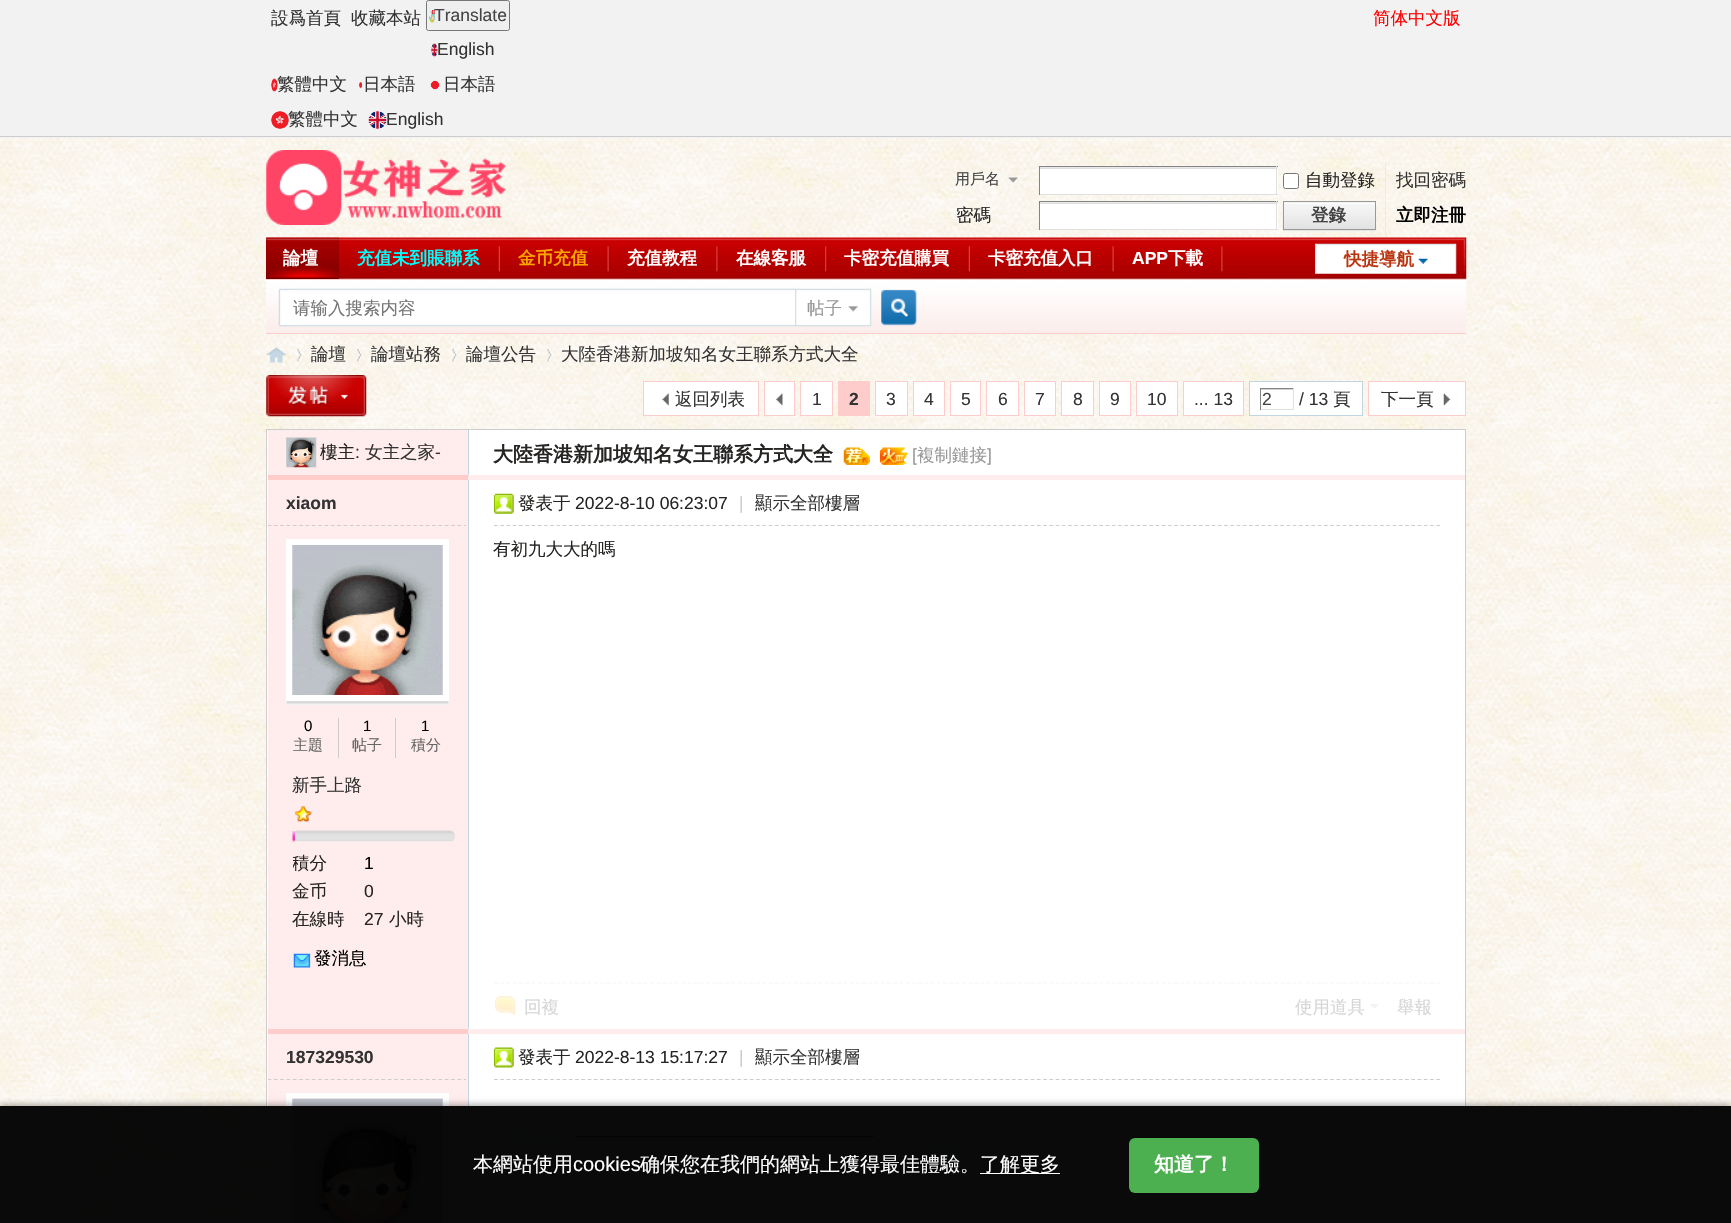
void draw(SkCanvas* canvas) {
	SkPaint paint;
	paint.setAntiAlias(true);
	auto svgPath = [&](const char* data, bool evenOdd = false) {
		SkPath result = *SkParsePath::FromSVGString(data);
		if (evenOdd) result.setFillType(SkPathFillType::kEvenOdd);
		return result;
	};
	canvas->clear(0xffffffff);
	canvas->drawImageRect(SkImages::DeferredFromEncodedData(SkData::MakeFromFileName("img1.png")), SkRect::MakeXYWH(0, 138, 1731, 1085), SkSamplingOptions());
	paint.setColor(0xfff2f2f2);
	canvas->drawRect(SkRect::MakeXYWH(0, 0, 1731, 138), paint);
	paint.setColor(0xffcdcdcd);
	canvas->drawRect(SkRect::MakeXYWH(0, 136, 1731, 1), paint);
	paint.setColor(0xffefefef);
	canvas->drawRoundRect(SkRect::MakeXYWH(426.5, 0.5, 83, 30), 2, 2, paint);
	paint.setStroke(true);
	paint.setStrokeWidth(1);
	paint.setColor(0xff767676);
	canvas->drawRoundRect(SkRect::MakeXYWH(426.5, 0.5, 83, 30), 2, 2, paint);
	canvas->drawImageRect(SkImages::DeferredFromEncodedData(SkData::MakeFromFileName("img2.png")), SkRect::MakeXYWH(429, 10, 6, 13), SkSamplingOptions());
	SkFont f1(fontMgr->matchFamilyStyle("Liberation Sans", SkFontStyle::Normal()), 17.5);
	f1.setSubpixel(true);
	paint.setStroke(false);
	paint.setColor(0xff444444);
	canvas->drawString("Translate", 434, 21, f1, paint);
	canvas->drawImageRect(SkImages::DeferredFromEncodedData(SkData::MakeFromFileName("img3.png")), SkRect::MakeXYWH(431, 43, 7, 14), SkSamplingOptions());
	paint.setColor(0xff333333);
	canvas->drawString("English", 437, 55, f1, paint);
	canvas->drawImageRect(SkImages::DeferredFromEncodedData(SkData::MakeFromFileName("img4.png")), SkRect::MakeXYWH(271, 78, 7, 14), SkSamplingOptions());
	SkFont f2(fontMgr->matchFamilyStyle("WenQuanYi Zen Hei", SkFontStyle(500, SkFontStyle::kNormal_Width, SkFontStyle::kUpright_Slant)), 17.5);
	f2.setSubpixel(true);
	canvas->drawString("繁體中文", 277, 90, f2, paint);
	canvas->drawImageRect(SkImages::DeferredFromEncodedData(SkData::MakeFromFileName("img5.png")), SkRect::MakeXYWH(359, 82, 3, 7), SkSamplingOptions());
	canvas->drawString("日本語", 363, 90, f2, paint);
	canvas->drawString("設爲首頁", 271, 24, f2, paint);
	canvas->drawString("收藏本站", 351, 24, f2, paint);
	canvas->drawImageRect(SkImages::DeferredFromEncodedData(SkData::MakeFromFileName("img6.png")), SkRect::MakeXYWH(430, 80, 10, 10), SkSamplingOptions());
	canvas->drawString("日本語", 443, 90, f2, paint);
	canvas->drawImageRect(SkImages::DeferredFromEncodedData(SkData::MakeFromFileName("img7.png")), SkRect::MakeXYWH(271, 111, 18, 18), SkSamplingOptions());
	canvas->drawString("繁體中文", 288, 125, f2, paint);
	canvas->drawImageRect(SkImages::DeferredFromEncodedData(SkData::MakeFromFileName("img8.png")), SkRect::MakeXYWH(368, 111, 19, 18), SkSamplingOptions());
	canvas->drawString("English", 386, 125, f1, paint);
	paint.setColor(0xffff0000);
	canvas->drawString("简体中文版", 1373, 24, f2, paint);
	canvas->drawImageRect(SkImages::DeferredFromEncodedData(SkData::MakeFromFileName("img9.png")), SkRect::MakeXYWH(266, 150, 241, 75), SkSamplingOptions());
	canvas->drawImageRect(SkImages::DeferredFromEncodedData(SkData::MakeFromFileName("img10.png")), SkRect::MakeXYWH(1008, 177, 10, 6), SkSamplingOptions());
	SkFont f3(fontMgr->matchFamilyStyle("WenQuanYi Zen Hei", SkFontStyle(500, SkFontStyle::kNormal_Width, SkFontStyle::kUpright_Slant)), 15);
	f3.setSubpixel(true);
	paint.setColor(0xff444444);
	canvas->drawString("用戶名", 955, 184, f3, paint);
	paint.setColor(0xffffffff);
	canvas->drawRect(SkRect::MakeXYWH(1040, 167, 238, 27), paint);
	canvas->drawImageRect(SkImages::DeferredFromEncodedData(SkData::MakeFromFileName("img11.png")), SkRect::MakeXYWH(1038, 167, 240, 2), SkSamplingOptions());
	paint.setColor(0xff848484);
	canvas->drawRect(SkRect::MakeXYWH(1039, 166, 239, 1), paint);
	paint.setColor(0xffe0e0e0);
	canvas->drawRect(SkRect::MakeXYWH(1276, 166, 1, 29), paint);
	canvas->drawRect(SkRect::MakeXYWH(1039, 194, 239, 1), paint);
	paint.setColor(0xff848484);
	canvas->drawRect(SkRect::MakeXYWH(1039, 166, 1, 29), paint);
	paint.setColor(0xffffffff);
	canvas->drawRoundRect(SkRect::MakeXYWH(1283.5, 173.5, 15, 15), 2, 2, paint);
	paint.setStroke(true);
	paint.setColor(0xff767676);
	canvas->drawRoundRect(SkRect::MakeXYWH(1283.5, 173.5, 15, 15), 2, 2, paint);
	paint.setStroke(false);
	paint.setColor(0xff262524);
	canvas->drawString("自動登錄", 1305, 186, f2, paint);
	paint.setColor(0xff333333);
	canvas->drawString("找回密碼", 1396, 186, f2, paint);
	paint.setColor(0xff262524);
	canvas->drawString("密碼", 956, 221, f2, paint);
	paint.setColor(0xffffffff);
	canvas->drawRect(SkRect::MakeXYWH(1040, 202, 238, 27), paint);
	canvas->drawImageRect(SkImages::DeferredFromEncodedData(SkData::MakeFromFileName("img12.png")), SkRect::MakeXYWH(1038, 202, 240, 2), SkSamplingOptions());
	paint.setColor(0xff848484);
	canvas->drawRect(SkRect::MakeXYWH(1039, 201, 239, 1), paint);
	paint.setColor(0xffe0e0e0);
	canvas->drawRect(SkRect::MakeXYWH(1276, 201, 1, 29), paint);
	canvas->drawRect(SkRect::MakeXYWH(1039, 229, 239, 1), paint);
	paint.setColor(0xff848484);
	canvas->drawRect(SkRect::MakeXYWH(1039, 201, 1, 29), paint);
	paint.setColor(0xffe5edf2);
	canvas->drawRect(SkRect::MakeXYWH(1385, 163, 1, 71), paint);
	paint.setColor(0xffe5e5e5);
	canvas->drawRect(SkRect::MakeXYWH(1283, 230, 93, 1), paint);
	canvas->drawRect(SkRect::MakeXYWH(1284, 202, 91, 1), paint);
	canvas->drawImageRect(SkImages::DeferredFromEncodedData(SkData::MakeFromFileName("img13.png")), SkRect::MakeXYWH(1282, 202, 95, 28), SkSamplingOptions());
	paint.setStroke(true);
	paint.setColor(0xff999999);
	canvas->drawRect(SkRect::MakeXYWH(1283.5, 201.5, 92, 28), paint);
	SkFont f4(fontMgr->matchFamilyStyle("WenQuanYi Zen Hei", SkFontStyle::Bold()), 17.5);
	f4.setSubpixel(true);
	paint.setStroke(false);
	paint.setColor(0xff444444);
	canvas->drawString("登錄", 1311, 221, f4, paint);
	paint.setColor(0xff000000);
	canvas->drawString("立即注冊", 1396, 221, f4, paint);
	canvas->drawImageRect(SkImages::DeferredFromEncodedData(SkData::MakeFromFileName("img14.png")), SkRect::MakeXYWH(266, 237, 1201, 42), SkSamplingOptions());
	paint.setColor(0xff840000);
	canvas->drawRect(SkRect::MakeXYWH(266, 238, 73, 41), paint);
	canvas->drawImageRect(SkImages::DeferredFromEncodedData(SkData::MakeFromFileName("img15.png")), SkRect::MakeXYWH(266, 237, 73, 42), SkSamplingOptions());
	paint.setColor(0xffffffff);
	canvas->drawString("論壇", 283, 264, f4, paint);
	canvas->drawImageRect(SkImages::DeferredFromEncodedData(SkData::MakeFromFileName("img16.png")), SkRect::MakeXYWH(498, 246, 2, 26), SkSamplingOptions());
	paint.setColor(0xff00ffff);
	canvas->drawString("充值未到賬聯系", 357, 264, f4, paint);
	canvas->drawImageRect(SkImages::DeferredFromEncodedData(SkData::MakeFromFileName("img17.png")), SkRect::MakeXYWH(607, 246, 2, 26), SkSamplingOptions());
	paint.setColor(0xffffa500);
	canvas->drawString("金币充值", 518, 264, f4, paint);
	canvas->drawImageRect(SkImages::DeferredFromEncodedData(SkData::MakeFromFileName("img18.png")), SkRect::MakeXYWH(716, 246, 2, 26), SkSamplingOptions());
	paint.setColor(0xffffffff);
	canvas->drawString("充值教程", 627, 264, f4, paint);
	canvas->drawImageRect(SkImages::DeferredFromEncodedData(SkData::MakeFromFileName("img19.png")), SkRect::MakeXYWH(825, 246, 2, 26), SkSamplingOptions());
	canvas->drawString("在線客服", 736, 264, f4, paint);
	canvas->drawImageRect(SkImages::DeferredFromEncodedData(SkData::MakeFromFileName("img16.png")), SkRect::MakeXYWH(968, 246, 2, 26), SkSamplingOptions());
	canvas->drawString("卡密充值購買", 844, 264, f4, paint);
	canvas->drawImageRect(SkImages::DeferredFromEncodedData(SkData::MakeFromFileName("img17.png")), SkRect::MakeXYWH(1112, 246, 2, 26), SkSamplingOptions());
	canvas->drawString("卡密充值入口", 988, 264, f4, paint);
	canvas->drawImageRect(SkImages::DeferredFromEncodedData(SkData::MakeFromFileName("img18.png")), SkRect::MakeXYWH(1221, 246, 2, 26), SkSamplingOptions());
	SkFont f5(fontMgr->matchFamilyStyle("Liberation Sans", SkFontStyle::Bold()), 17.5);
	f5.setSubpixel(true);
	canvas->drawString("APP", 1132, 264, f5, paint);
	canvas->drawString("下載", 1168, 264, f4, paint);
	canvas->drawImageRect(SkImages::DeferredFromEncodedData(SkData::MakeFromFileName("img20.png")), SkRect::MakeXYWH(1315, 243, 142, 31), SkSamplingOptions());
	paint.setColor(0xffba350f);
	canvas->drawString("快捷導航", 1344, 265, f4, paint);
	canvas->drawImageRect(SkImages::DeferredFromEncodedData(SkData::MakeFromFileName("img21.png")), SkRect::MakeXYWH(266, 280, 1201, 54), SkSamplingOptions());
	paint.setColor(0xffffcccc);
	canvas->drawRect(SkRect::MakeXYWH(266, 279, 1200, 1), paint);
	canvas->drawRect(SkRect::MakeXYWH(266, 333, 1200, 1), paint);
	canvas->drawImageRect(SkImages::DeferredFromEncodedData(SkData::MakeFromFileName("img22.png")), SkRect::MakeXYWH(266, 280, 27, 47), SkSamplingOptions());
	canvas->drawImageRect(SkImages::DeferredFromEncodedData(SkData::MakeFromFileName("img23.png")), SkRect::MakeXYWH(292, 288, 503, 39), SkSamplingOptions());
	paint.setColor(0xff757575);
	canvas->drawString("请输入搜索内容", 293, 314, f2, paint);
	canvas->drawImageRect(SkImages::DeferredFromEncodedData(SkData::MakeFromFileName("img24.png")), SkRect::MakeXYWH(795, 288, 77, 39), SkSamplingOptions());
	paint.setColor(0xff999999);
	canvas->drawString("帖子", 807, 314, f2, paint);
	canvas->drawImageRect(SkImages::DeferredFromEncodedData(SkData::MakeFromFileName("img25.png")), SkRect::MakeXYWH(881, 289, 36, 37), SkSamplingOptions());
	canvas->drawImageRect(SkImages::DeferredFromEncodedData(SkData::MakeFromFileName("img26.png")), SkRect::MakeXYWH(266, 347, 21, 16), SkSamplingOptions());
	canvas->drawImageRect(SkImages::DeferredFromEncodedData(SkData::MakeFromFileName("img27.png")), SkRect::MakeXYWH(297, 348, 6, 14), SkSamplingOptions());
	paint.setColor(0xff333333);
	canvas->drawString("論壇", 311, 360, f2, paint);
	canvas->drawImageRect(SkImages::DeferredFromEncodedData(SkData::MakeFromFileName("img28.png")), SkRect::MakeXYWH(357, 348, 6, 14), SkSamplingOptions());
	canvas->drawString("論壇站務", 371, 360, f2, paint);
	canvas->drawImageRect(SkImages::DeferredFromEncodedData(SkData::MakeFromFileName("img29.png")), SkRect::MakeXYWH(452, 348, 6, 14), SkSamplingOptions());
	canvas->drawString("論壇公告", 466, 360, f2, paint);
	canvas->drawImageRect(SkImages::DeferredFromEncodedData(SkData::MakeFromFileName("img30.png")), SkRect::MakeXYWH(547, 348, 6, 14), SkSamplingOptions());
	canvas->drawString("大陸香港新加坡知名女王聯系方式大全", 561, 360, f2, paint);
	canvas->drawImageRect(SkImages::DeferredFromEncodedData(SkData::MakeFromFileName("img31.png")), SkRect::MakeXYWH(266, 375, 101, 42), SkSamplingOptions());
	paint.setColor(0xffffffff);
	canvas->drawRect(SkRect::MakeXYWH(644, 382, 114, 33), paint);
	canvas->drawImageRect(SkImages::DeferredFromEncodedData(SkData::MakeFromFileName("img32.png")), SkRect::MakeXYWH(662, 393, 7, 13), SkSamplingOptions());
	paint.setStroke(true);
	paint.setColor(0xffffcccc);
	canvas->drawRect(SkRect::MakeXYWH(643.5, 381.5, 115, 34), paint);
	paint.setStroke(false);
	paint.setColor(0xff333333);
	canvas->drawString("返回列表", 675, 405, f2, paint);
	paint.setColor(0xffffffff);
	canvas->drawRect(SkRect::MakeXYWH(765, 382, 29, 33), paint);
	canvas->drawImageRect(SkImages::DeferredFromEncodedData(SkData::MakeFromFileName("img33.png")), SkRect::MakeXYWH(776, 393, 7, 13), SkSamplingOptions());
	paint.setStroke(true);
	paint.setColor(0xffffcccc);
	canvas->drawRect(SkRect::MakeXYWH(764.5, 381.5, 30, 34), paint);
	paint.setStroke(false);
	paint.setColor(0xffffffff);
	canvas->drawRect(SkRect::MakeXYWH(800.5, 381.5, 32, 34), paint);
	paint.setStroke(true);
	paint.setColor(0xffffcccc);
	canvas->drawRect(SkRect::MakeXYWH(800.5, 381.5, 32, 34), paint);
	paint.setStroke(false);
	paint.setColor(0xff333333);
	canvas->drawString("1", 812, 405, f1, paint);
	paint.setColor(0xffffcccc);
	canvas->drawRect(SkRect::MakeXYWH(838, 381, 32, 35), paint);
	paint.setColor(0xff333333);
	canvas->drawString("2", 849, 405, f5, paint);
	paint.setColor(0xffffffff);
	canvas->drawRect(SkRect::MakeXYWH(875.5, 381.5, 32, 34), paint);
	paint.setStroke(true);
	paint.setColor(0xffffcccc);
	canvas->drawRect(SkRect::MakeXYWH(875.5, 381.5, 32, 34), paint);
	paint.setStroke(false);
	paint.setColor(0xff333333);
	canvas->drawString("3", 886, 405, f1, paint);
	paint.setColor(0xffffffff);
	canvas->drawRect(SkRect::MakeXYWH(913.5, 381.5, 31, 34), paint);
	paint.setStroke(true);
	paint.setColor(0xffffcccc);
	canvas->drawRect(SkRect::MakeXYWH(913.5, 381.5, 31, 34), paint);
	paint.setStroke(false);
	paint.setColor(0xff333333);
	canvas->drawString("4", 924, 405, f1, paint);
	paint.setColor(0xffffffff);
	canvas->drawRect(SkRect::MakeXYWH(950.5, 381.5, 30, 34), paint);
	paint.setStroke(true);
	paint.setColor(0xffffcccc);
	canvas->drawRect(SkRect::MakeXYWH(950.5, 381.5, 30, 34), paint);
	paint.setStroke(false);
	paint.setColor(0xff333333);
	canvas->drawString("5", 961, 405, f1, paint);
	paint.setColor(0xffffffff);
	canvas->drawRect(SkRect::MakeXYWH(986.5, 381.5, 32, 34), paint);
	paint.setStroke(true);
	paint.setColor(0xffffcccc);
	canvas->drawRect(SkRect::MakeXYWH(986.5, 381.5, 32, 34), paint);
	paint.setStroke(false);
	paint.setColor(0xff333333);
	canvas->drawString("6", 998, 405, f1, paint);
	paint.setColor(0xffffffff);
	canvas->drawRect(SkRect::MakeXYWH(1024.5, 381.5, 31, 34), paint);
	paint.setStroke(true);
	paint.setColor(0xffffcccc);
	canvas->drawRect(SkRect::MakeXYWH(1024.5, 381.5, 31, 34), paint);
	paint.setStroke(false);
	paint.setColor(0xff333333);
	canvas->drawString("7", 1035, 405, f1, paint);
	paint.setColor(0xffffffff);
	canvas->drawRect(SkRect::MakeXYWH(1061.5, 381.5, 32, 34), paint);
	paint.setStroke(true);
	paint.setColor(0xffffcccc);
	canvas->drawRect(SkRect::MakeXYWH(1061.5, 381.5, 32, 34), paint);
	paint.setStroke(false);
	paint.setColor(0xff333333);
	canvas->drawString("8", 1073, 405, f1, paint);
	paint.setColor(0xffffffff);
	canvas->drawRect(SkRect::MakeXYWH(1099.5, 381.5, 31, 34), paint);
	paint.setStroke(true);
	paint.setColor(0xffffcccc);
	canvas->drawRect(SkRect::MakeXYWH(1099.5, 381.5, 31, 34), paint);
	paint.setStroke(false);
	paint.setColor(0xff333333);
	canvas->drawString("9", 1110, 405, f1, paint);
	paint.setColor(0xffffffff);
	canvas->drawRect(SkRect::MakeXYWH(1136.5, 381.5, 41, 34), paint);
	paint.setStroke(true);
	paint.setColor(0xffffcccc);
	canvas->drawRect(SkRect::MakeXYWH(1136.5, 381.5, 41, 34), paint);
	paint.setStroke(false);
	paint.setColor(0xff333333);
	canvas->drawString("10", 1147, 405, f1, paint);
	paint.setColor(0xffffffff);
	canvas->drawRect(SkRect::MakeXYWH(1183.5, 381.5, 60, 34), paint);
	paint.setStroke(true);
	paint.setColor(0xffffcccc);
	canvas->drawRect(SkRect::MakeXYWH(1183.5, 381.5, 60, 34), paint);
	paint.setStroke(false);
	paint.setColor(0xff333333);
	canvas->drawString("... 13", 1194, 405, f1, paint);
	paint.setColor(0xffffffff);
	canvas->drawRect(SkRect::MakeXYWH(1249.5, 381.5, 113, 34), paint);
	paint.setStroke(true);
	paint.setColor(0xffc2d5e3);
	canvas->drawRect(SkRect::MakeXYWH(1249.5, 381.5, 113, 34), paint);
	canvas->drawImageRect(SkImages::DeferredFromEncodedData(SkData::MakeFromFileName("img34.png")), SkRect::MakeXYWH(1261, 389, 32, 1), SkSamplingOptions());
	paint.setStroke(false);
	paint.setColor(0xff848484);
	canvas->drawRect(SkRect::MakeXYWH(1260, 388, 34, 1), paint);
	paint.setColor(0xffe0e0e0);
	canvas->drawRect(SkRect::MakeXYWH(1293, 388, 1, 22), paint);
	canvas->drawRect(SkRect::MakeXYWH(1260, 409, 34, 1), paint);
	paint.setColor(0xff848484);
	canvas->drawRect(SkRect::MakeXYWH(1260, 388, 1, 22), paint);
	paint.setColor(0xff444444);
	canvas->drawString("2", 1262, 405, f1, paint);
	paint.setColor(0xff333333);
	canvas->drawString("/ 13", 1299, 405, f1, paint);
	canvas->drawString("頁", 1333, 405, f2, paint);
	paint.setColor(0xffffffff);
	canvas->drawRect(SkRect::MakeXYWH(1369, 382, 96, 33), paint);
	canvas->drawImageRect(SkImages::DeferredFromEncodedData(SkData::MakeFromFileName("img35.png")), SkRect::MakeXYWH(1443, 393, 8, 13), SkSamplingOptions());
	paint.setStroke(true);
	paint.setColor(0xffffcccc);
	canvas->drawRect(SkRect::MakeXYWH(1368.5, 381.5, 97, 34), paint);
	paint.setStroke(false);
	paint.setColor(0xff333333);
	canvas->drawString("下一頁", 1381, 405, f2, paint);
	paint.setColor(0xffffffff);
	canvas->drawRect(SkRect::MakeXYWH(266.5, 429.5, 1199, 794), paint);
	paint.setStroke(true);
	paint.setColor(0xffcdcdcd);
	canvas->drawRect(SkRect::MakeXYWH(266.5, 429.5, 1199, 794), paint);
	paint.setStroke(false);
	paint.setColor(0xffc2d5e3);
	canvas->drawRect(SkRect::MakeXYWH(468, 430, 1, 46), paint);
	paint.setColor(0xffffecec);
	canvas->drawRect(SkRect::MakeXYWH(268, 430, 200, 45), paint);
	canvas->drawImageRect(SkImages::DeferredFromEncodedData(SkData::MakeFromFileName("img36.png")), SkRect::MakeXYWH(286, 437, 31, 31), SkSamplingOptions());
	paint.setColor(0xff262524);
	canvas->drawString("樓主", 320, 458, f2, paint);
	canvas->drawString(":", 355, 458, f1, paint);
	paint.setColor(0xff333333);
	canvas->drawString("女主之家", 365, 458, f2, paint);
	canvas->drawString("-", 435, 458, f1, paint);
	SkFont f6(fontMgr->matchFamilyStyle("WenQuanYi Zen Hei", SkFontStyle::Bold()), 20);
	f6.setSubpixel(true);
	paint.setColor(0xff262524);
	canvas->drawString("大陸香港新加坡知名女王聯系方式大全", 493, 461, f6, paint);
	canvas->drawImageRect(SkImages::DeferredFromEncodedData(SkData::MakeFromFileName("img37.png")), SkRect::MakeXYWH(843, 447, 27, 18), SkSamplingOptions());
	canvas->drawImageRect(SkImages::DeferredFromEncodedData(SkData::MakeFromFileName("img38.png")), SkRect::MakeXYWH(880, 447, 28, 18), SkSamplingOptions());
	paint.setColor(0xff999999);
	canvas->drawString("[", 912, 461, f1, paint);
	canvas->drawString("複制鏈接", 917, 461, f2, paint);
	canvas->drawString("]", 987, 461, f1, paint);
	paint.setColor(0xffffcccc);
	canvas->drawRect(SkRect::MakeXYWH(268, 475, 200, 5), paint);
	paint.setColor(0xffffecec);
	canvas->drawRect(SkRect::MakeXYWH(468, 475, 997, 5), paint);
	canvas->drawRect(SkRect::MakeXYWH(268, 480, 200, 549), paint);
	canvas->save();
	canvas->clipRect(SkRect::MakeXYWH(268, 480, 198, 503));
	paint.setStroke(true);
	paint.setStrokeWidth(1.2);
	paint.setColor(0xffcdcdcd);
	paint.setPathEffect(SkDashPathEffect::Make({{3.75f, 2.58f}}, 0));
	canvas->drawPath(svgPath("M267.5 525.5H467.5"), paint);
	paint.setPathEffect(nullptr);
	canvas->restore();
	paint.setStroke(false);
	paint.setColor(0xff333333);
	canvas->drawString("xiaom", 286, 509, f5, paint);
	paint.setColor(0xffffffff);
	canvas->drawRect(SkRect::MakeXYWH(286, 539, 163, 166), paint);
	canvas->drawImageRect(SkImages::DeferredFromEncodedData(SkData::MakeFromFileName("img39.png")), SkRect::MakeXYWH(286, 545, 163, 160), SkSamplingOptions());
	canvas->drawImageRect(SkImages::DeferredFromEncodedData(SkData::MakeFromFileName("img40.png")), SkRect::MakeXYWH(292, 545, 151, 150), SkSamplingOptions());
	paint.setColor(0xffcccccc);
	canvas->drawRect(SkRect::MakeXYWH(338, 718, 1, 40), paint);
	SkFont f7(fontMgr->matchFamilyStyle("Liberation Sans", SkFontStyle::Normal()), 15);
	f7.setSubpixel(true);
	paint.setColor(0xff000000);
	canvas->drawString("0", 304, 731, f7, paint);
	paint.setColor(0xff666666);
	canvas->drawString("主題", 293, 750, f3, paint);
	paint.setColor(0xffcccccc);
	canvas->drawRect(SkRect::MakeXYWH(395, 718, 1, 40), paint);
	paint.setColor(0xff000000);
	canvas->drawString("1", 363, 731, f7, paint);
	paint.setColor(0xff666666);
	canvas->drawString("帖子", 352, 750, f3, paint);
	paint.setColor(0xff000000);
	canvas->drawString("1", 421, 731, f7, paint);
	paint.setColor(0xff666666);
	canvas->drawString("積分", 411, 750, f3, paint);
	paint.setColor(0xff333333);
	canvas->drawString("新手上路", 292, 791, f2, paint);
	canvas->drawImageRect(SkImages::DeferredFromEncodedData(SkData::MakeFromFileName("img41.png")), SkRect::MakeXYWH(294, 806, 18, 16), SkSamplingOptions());
	canvas->drawImageRect(SkImages::DeferredFromEncodedData(SkData::MakeFromFileName("img42.png")), SkRect::MakeXYWH(292, 830, 163, 12), SkSamplingOptions());
	canvas->drawImageRect(SkImages::DeferredFromEncodedData(SkData::MakeFromFileName("img43.png")), SkRect::MakeXYWH(292, 831, 3, 12), SkSamplingOptions());
	canvas->save();
	canvas->clipRect(SkRect::MakeXYWH(293, 849, 68, 27));
	paint.setColor(0xff262524);
	canvas->drawString("積分", 292, 869, f2, paint);
	canvas->restore();
	paint.setColor(0xff000000);
	canvas->drawString("1", 364, 869, f1, paint);
	paint.setColor(0xff262524);
	canvas->drawString("金币", 292, 897, f2, paint);
	canvas->drawString("0", 364, 897, f1, paint);
	canvas->drawString("在線時", 292, 925, f2, paint);
	canvas->drawString("27", 364, 925, f1, paint);
	canvas->drawString("小時", 389, 925, f2, paint);
	canvas->drawImageRect(SkImages::DeferredFromEncodedData(SkData::MakeFromFileName("img44.png")), SkRect::MakeXYWH(293, 953, 18, 15), SkSamplingOptions());
	paint.setColor(0xff000000);
	canvas->drawString("發消息", 314, 964, f2, paint);
	paint.setStroke(true);
	paint.setColor(0xffcdcdcd);
	paint.setPathEffect(SkDashPathEffect::Make({{3.75f, 2.49f}}, 0));
	canvas->drawPath(svgPath("M494 525.5H1440"), paint);
	paint.setPathEffect(nullptr);
	canvas->drawImageRect(SkImages::DeferredFromEncodedData(SkData::MakeFromFileName("img45.png")), SkRect::MakeXYWH(493, 493, 21, 21), SkSamplingOptions());
	paint.setStroke(false);
	paint.setColor(0xff262524);
	canvas->drawString("發表于", 518, 509, f2, paint);
	canvas->drawString("2022-8-10 06:23:07", 575, 509, f1, paint);
	paint.setColor(0xffcccccc);
	canvas->drawString("|", 739, 509, f1, paint);
	paint.setColor(0xff333333);
	canvas->drawString("顯示全部樓層", 755, 509, f2, paint);
	paint.setColor(0xff262524);
	canvas->drawString("有初九大大的嗎", 493, 555, f2, paint);
	paint.setColor(0xffc2d5e3);
	canvas->drawRect(SkRect::MakeXYWH(468, 480, 1, 550), paint);
	paint.setStroke(true);
	paint.setColor(0xfff5f5f5);
	paint.setPathEffect(SkDashPathEffect::Make({{3.75f, 2.49f}}, 0));
	canvas->drawPath(svgPath("M494 983H1440"), paint);
	paint.setPathEffect(nullptr);
	canvas->drawImageRect(SkImages::DeferredFromEncodedData(SkData::MakeFromFileName("img46.png")), SkRect::MakeXYWH(495, 996, 21, 20), SkSamplingOptions());
	paint.setStroke(false);
	paint.setColor(0xffd6d6d6);
	canvas->drawString("回複", 524, 1013, f2, paint);
	canvas->drawString("使用道具", 1295, 1013, f2, paint);
	canvas->drawImageRect(SkImages::DeferredFromEncodedData(SkData::MakeFromFileName("img47.png")), SkRect::MakeXYWH(1370, 1004, 9, 5), SkSamplingOptions());
	canvas->drawString("舉報", 1397, 1013, f2, paint);
	paint.setColor(0xffffcccc);
	canvas->drawRect(SkRect::MakeXYWH(268, 1029, 200, 5), paint);
	paint.setColor(0xffffecec);
	canvas->drawRect(SkRect::MakeXYWH(468, 1029, 997, 5), paint);
	paint.setColor(0xffc2d5e3);
	canvas->drawRect(SkRect::MakeXYWH(468, 1034, 1, 189), paint);
	paint.setColor(0xffffecec);
	canvas->drawRect(SkRect::MakeXYWH(268, 1034, 200, 189), paint);
	canvas->save();
	canvas->clipRect(SkRect::MakeXYWH(268, 1034, 198, 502));
	paint.setStroke(true);
	paint.setColor(0xffcdcdcd);
	paint.setPathEffect(SkDashPathEffect::Make({{3.75f, 2.58f}}, 0));
	canvas->drawPath(svgPath("M267.5 1079.5H467.5"), paint);
	paint.setPathEffect(nullptr);
	canvas->restore();
	paint.setStroke(false);
	paint.setColor(0xff333333);
	canvas->drawString("187329530", 286, 1063, f5, paint);
	paint.setColor(0xffffffff);
	canvas->drawRect(SkRect::MakeXYWH(286, 1093, 163, 130), paint);
	canvas->drawImageRect(SkImages::DeferredFromEncodedData(SkData::MakeFromFileName("img48.png")), SkRect::MakeXYWH(292, 1098, 151, 125), SkSamplingOptions());
	canvas->drawImageRect(SkImages::DeferredFromEncodedData(SkData::MakeFromFileName("img49.png")), SkRect::MakeXYWH(292, 1098, 151, 125), SkSamplingOptions());
	paint.setStroke(true);
	paint.setColor(0xffcdcdcd);
	paint.setPathEffect(SkDashPathEffect::Make({{3.75f, 2.49f}}, 0));
	canvas->drawPath(svgPath("M494 1079.5H1440"), paint);
	paint.setPathEffect(nullptr);
	canvas->drawImageRect(SkImages::DeferredFromEncodedData(SkData::MakeFromFileName("img50.png")), SkRect::MakeXYWH(493, 1047, 21, 21), SkSamplingOptions());
	paint.setStroke(false);
	paint.setColor(0xff262524);
	canvas->drawString("發表于", 518, 1063, f2, paint);
	canvas->drawString("2022-8-13 15:17:27", 575, 1063, f1, paint);
	paint.setColor(0xffcccccc);
	canvas->drawString("|", 739, 1063, f1, paint);
	paint.setColor(0xff333333);
	canvas->drawString("顯示全部樓層", 755, 1063, f2, paint);
	paint.setColor(0xfff9f9f9);
	canvas->drawRect(SkRect::MakeXYWH(494, 1105, 946, 79), paint);
	canvas->drawImageRect(SkImages::DeferredFromEncodedData(SkData::MakeFromFileName("img51.png")), SkRect::MakeXYWH(519, 1114, 34, 31), SkSamplingOptions());
	canvas->drawImageRect(SkImages::DeferredFromEncodedData(SkData::MakeFromFileName("img52.png")), SkRect::MakeXYWH(921, 1145, 33, 32), SkSamplingOptions());
	paint.setColor(0xff336699);
	canvas->drawRect(SkRect::MakeXYWH(575, 1136, 299, 1), paint);
	canvas->save();
	canvas->clipPath(svgPath("M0 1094H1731V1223H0ZM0 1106H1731V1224H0Z", true), true);
	paint.setColor(0x4d000000);
	paint.setMaskFilter(SkMaskFilter::MakeBlur(kNormal_SkBlurStyle, 3));
	canvas->drawRect(SkRect::MakeXYWH(0, 1104, 1731, 117), paint);
	paint.setMaskFilter(nullptr);
	canvas->restore();
	paint.setColor(0xf5000000);
	canvas->drawRect(SkRect::MakeXYWH(0, 1106, 1731, 117), paint);
	SkFont f8(fontMgr->matchFamilyStyle("WenQuanYi Zen Hei", SkFontStyle(500, SkFontStyle::kNormal_Width, SkFontStyle::kUpright_Slant)), 20);
	f8.setSubpixel(true);
	paint.setColor(0xffffffff);
	canvas->drawString("本網站使用", 473, 1171, f8, paint);
	SkFont f9(fontMgr->matchFamilyStyle("Liberation Sans", SkFontStyle::Normal()), 20);
	f9.setSubpixel(true);
	canvas->drawString("cookies", 573, 1171, f9, paint);
	canvas->drawString("确保您在我們的網站上獲得最佳體驗。", 640, 1171, f8, paint);
	canvas->drawRect(SkRect::MakeXYWH(980, 1173, 80, 1), paint);
	canvas->drawString("了解更多", 980, 1171, f8, paint);
	paint.setColor(0xff4caf50);
	canvas->drawRoundRect(SkRect::MakeXYWH(1129, 1138, 130, 55), 6, 6, paint);
	paint.setColor(0xffffffff);
	canvas->drawString("知道了！", 1154, 1171, f6, paint);
}
